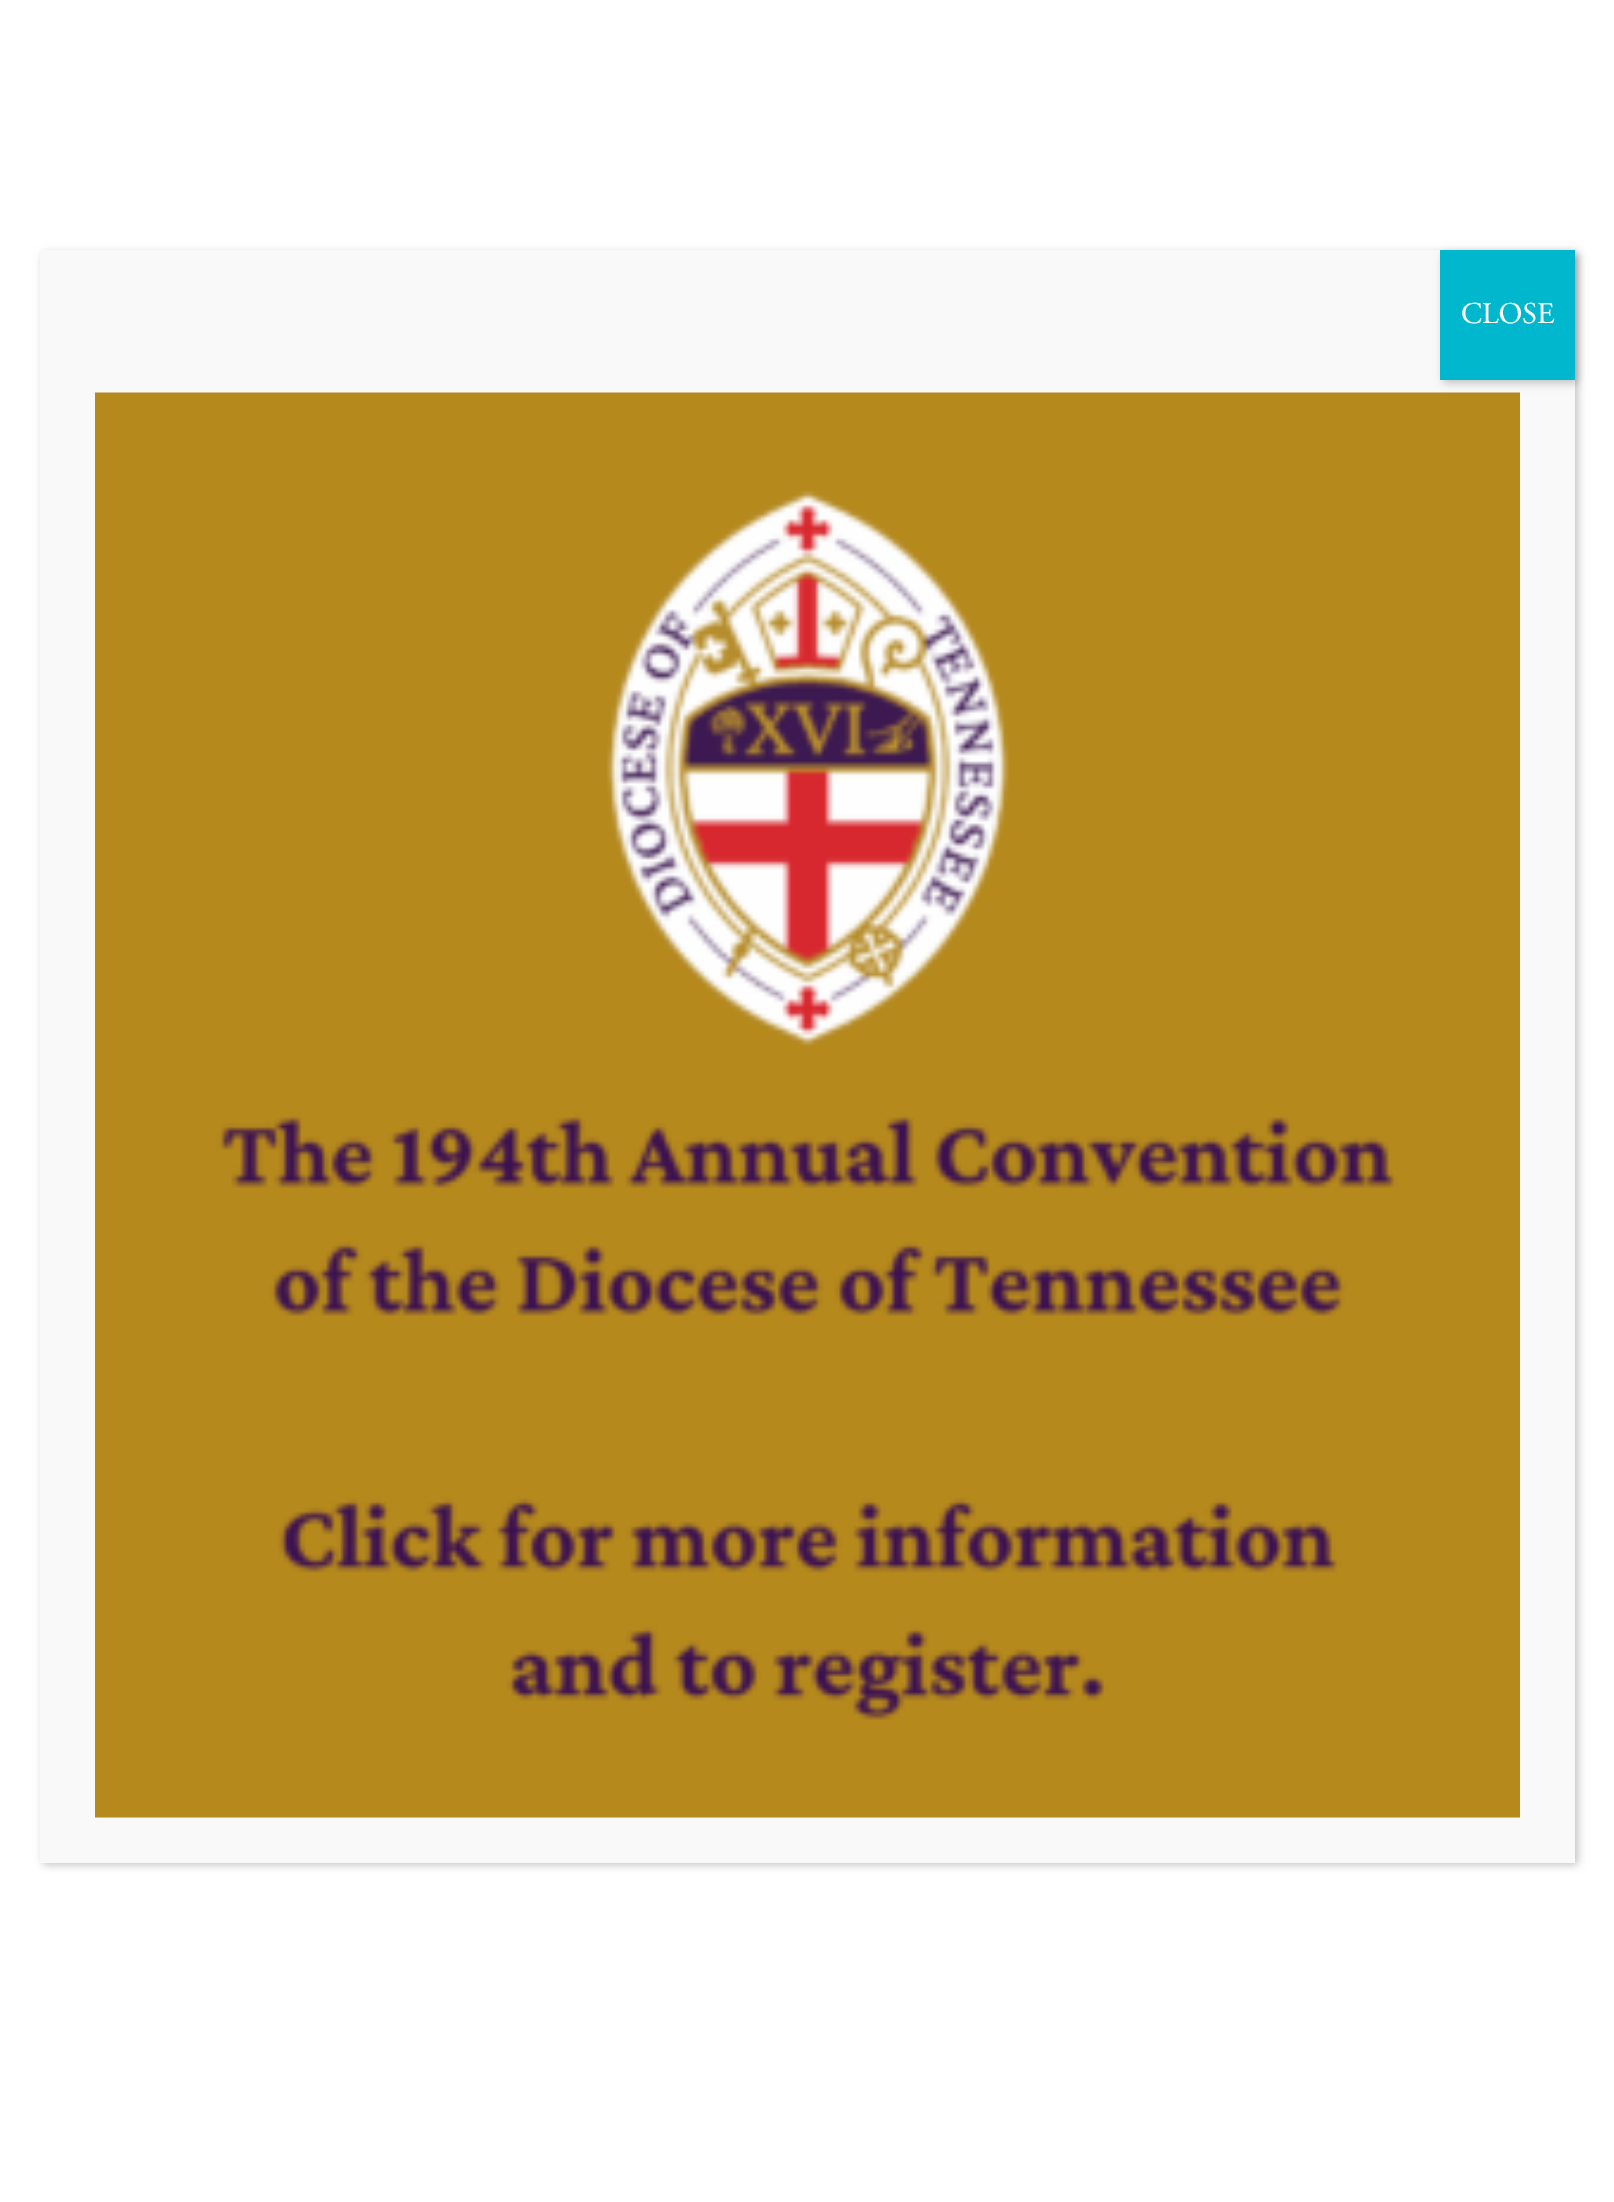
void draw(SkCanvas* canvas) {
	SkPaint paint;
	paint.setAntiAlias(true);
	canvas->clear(0xffffffff);
	paint.setColor(0x3b020202);
	paint.setMaskFilter(SkMaskFilter::MakeBlur(kNormal_SkBlurStyle, 4));
	canvas->drawRect(SkRect::MakeXYWH(43, 253, 1535, 1612), paint);
	paint.setMaskFilter(nullptr);
	paint.setColor(0xfff9f9f9);
	canvas->drawRect(SkRect::MakeXYWH(40, 250, 1535, 1613), paint);
	canvas->drawImageRect(SkImages::DeferredFromEncodedData(SkData::MakeFromFileName("img1.png")), SkRect::MakeXYWH(95, 392, 1425, 1426), SkSamplingOptions());
	paint.setColor(0x3b020202);
	paint.setMaskFilter(SkMaskFilter::MakeBlur(kNormal_SkBlurStyle, 4));
	canvas->drawRect(SkRect::MakeXYWH(1443, 253, 135, 130), paint);
	paint.setMaskFilter(nullptr);
	paint.setColor(0xff00b7cd);
	canvas->drawRect(SkRect::MakeXYWH(1440, 250, 135, 130), paint);
	SkFont f1(fontMgr->matchFamilyStyle("Adobe Garamond", SkFontStyle::Normal()), 30);
	f1.setSubpixel(true);
	paint.setColor(0xffffffff);
	canvas->drawString("CLOSE", 1461, 323, f1, paint);
}
